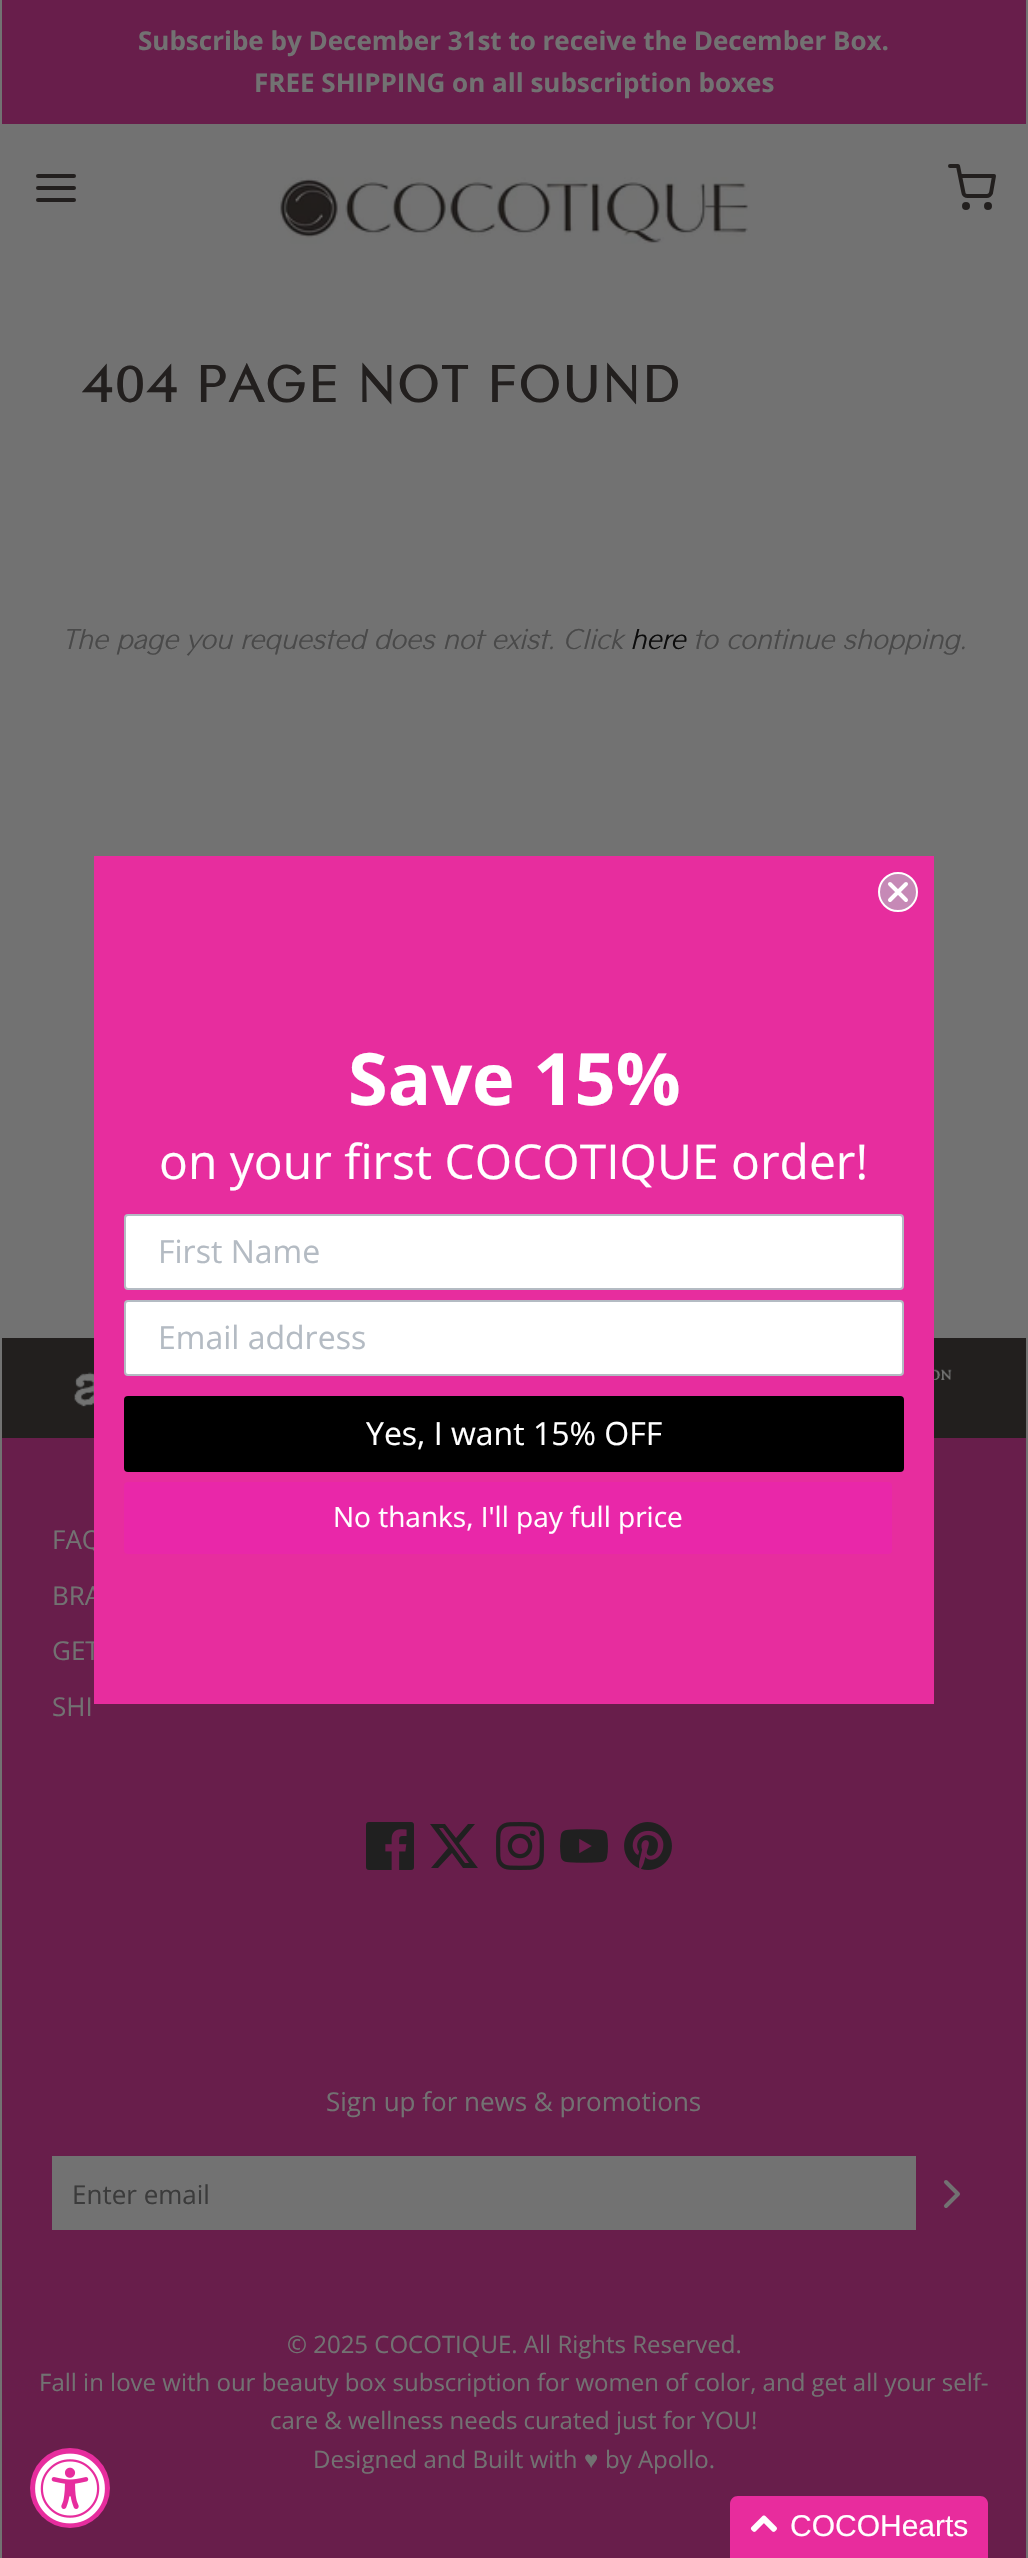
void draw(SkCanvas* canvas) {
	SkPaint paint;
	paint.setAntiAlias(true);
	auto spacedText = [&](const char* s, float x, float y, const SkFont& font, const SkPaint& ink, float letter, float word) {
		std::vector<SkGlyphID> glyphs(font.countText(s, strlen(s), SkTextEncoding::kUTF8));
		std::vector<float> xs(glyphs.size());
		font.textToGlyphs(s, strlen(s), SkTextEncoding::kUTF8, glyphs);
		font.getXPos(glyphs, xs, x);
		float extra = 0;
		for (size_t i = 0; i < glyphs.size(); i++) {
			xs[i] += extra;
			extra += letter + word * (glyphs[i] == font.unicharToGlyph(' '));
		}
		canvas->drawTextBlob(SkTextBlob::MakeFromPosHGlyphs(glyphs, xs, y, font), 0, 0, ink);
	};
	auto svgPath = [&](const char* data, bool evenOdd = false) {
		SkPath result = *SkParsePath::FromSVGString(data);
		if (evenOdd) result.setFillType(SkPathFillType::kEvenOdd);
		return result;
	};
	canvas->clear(0xff727272);
	paint.setColor(0xff681e4b);
	canvas->drawRect(SkRect::MakeXYWH(2, 0, 1024, 124), paint);
	SkFont f1(fontMgr->matchFamilyStyle("Open Sans", SkFontStyle::Bold()), 26);
	f1.setSubpixel(true);
	paint.setColor(0xff727272);
	canvas->drawString("Subscribe by December 31st to receive the December Box.", 138, 50, f1, paint);
	canvas->drawString("FREE SHIPPING on all subscription boxes", 254, 92, f1, paint);
	paint.setStroke(true);
	paint.setStrokeWidth(4);
	paint.setStrokeCap(SkPaint::kRound_Cap);
	paint.setStrokeJoin(SkPaint::kRound_Join);
	paint.setColor(0xff221f1e);
	canvas->drawPath(svgPath("M38 188H74M38 176H74M38 200H74"), paint);
	canvas->drawImageRect(SkImages::DeferredFromEncodedData(SkData::MakeFromFileName("img1.png")), SkRect::MakeXYWH(278, 177, 472, 67), SkSamplingOptions());
	canvas->drawPath(svgPath("M950 166H958L963.5 193C963.5 194.5 965.5 196 967.5 196H987C988.5 196 990.5 194.5 991 193L994 176H960"), paint);
	paint.setStrokeCap(SkPaint::kButt_Cap);
	paint.setStrokeJoin(SkPaint::kMiter_Join);
	canvas->drawCircle(966, 206, 2, paint);
	canvas->drawCircle(988, 206, 2, paint);
	SkFont f2(fontMgr->matchFamilyStyle("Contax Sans", SkFontStyle::Bold()), 52);
	f2.setSubpixel(true);
	paint.setStroke(false);
	spacedText("404 PAGE NOT FOUND", 82, 402, f2, paint, 2, 0);
	SkFont f3(fontMgr->matchFamilyStyle("Contax Sans", SkFontStyle::BoldItalic()), 28);
	f3.setSubpixel(true);
	paint.setColor(0xff494949);
	canvas->drawString("The page you requested does not exist. Click", 62, 649, f3, paint);
	paint.setColor(0xff0c0c0c);
	canvas->drawString("here", 630, 649, f3, paint);
	paint.setColor(0xff494949);
	canvas->drawString("to continue shopping.", 693, 649, f3, paint);
	paint.setColor(0xff221f1e);
	canvas->drawRect(SkRect::MakeXYWH(2, 1338, 1024, 100), paint);
	canvas->drawImageRect(SkImages::DeferredFromEncodedData(SkData::MakeFromFileName("img2.png")), SkRect::MakeXYWH(74, 1359, 20, 48), SkSamplingOptions());
	canvas->drawImageRect(SkImages::DeferredFromEncodedData(SkData::MakeFromFileName("img3.png")), SkRect::MakeXYWH(934, 1353, 18, 44), SkSamplingOptions());
	paint.setColor(0xff681e4b);
	canvas->drawRect(SkRect::MakeXYWH(2, 1438, 1024, 1120), paint);
	SkFont f4(fontMgr->matchFamilyStyle("Open Sans", SkFontStyle::Normal()), 26);
	f4.setSubpixel(true);
	paint.setColor(0xff727272);
	canvas->drawString("FAQ", 52, 1549, f4, paint);
	canvas->drawString("BRA", 52, 1605, f4, paint);
	canvas->drawString("GET", 52, 1660, f4, paint);
	canvas->drawString("SHI", 52, 1716, f4, paint);
	canvas->drawImageRect(SkImages::DeferredFromEncodedData(SkData::MakeFromFileName("img4.png")), SkRect::MakeXYWH(366, 1822, 48, 48), SkSamplingOptions());
	paint.setColor(0xff202020);
	canvas->drawPath(svgPath("M468 1824H475L459 1843L478 1868H463L452 1853L438 1868H431L448 1848L430 1824H445L456 1838ZM465 1863H469L443 1828H439Z"), paint);
	canvas->drawImageRect(SkImages::DeferredFromEncodedData(SkData::MakeFromFileName("img5.png")), SkRect::MakeXYWH(496, 1822, 48, 48), SkSamplingOptions());
	canvas->drawImageRect(SkImages::DeferredFromEncodedData(SkData::MakeFromFileName("img6.png")), SkRect::MakeXYWH(560, 1829, 48, 34), SkSamplingOptions());
	canvas->drawImageRect(SkImages::DeferredFromEncodedData(SkData::MakeFromFileName("img7.png")), SkRect::MakeXYWH(624, 1822, 48, 48), SkSamplingOptions());
	paint.setColor(0xff727272);
	canvas->drawString("Sign up for news & promotions", 326, 2111, f4, paint);
	canvas->drawRect(SkRect::MakeXYWH(52, 2156, 864, 74), paint);
	paint.setColor(0xff3b3b3b);
	canvas->drawString("Enter email", 72, 2204, f4, paint);
	paint.setStroke(true);
	paint.setStrokeCap(SkPaint::kRound_Cap);
	paint.setStrokeJoin(SkPaint::kRound_Join);
	paint.setColor(0xff727272);
	canvas->drawPath(svgPath("M946 2206L958 2194L946 2182"), paint);
	SkFont f5(fontMgr->matchFamilyStyle("Open Sans", SkFontStyle::Normal()), 24);
	f5.setSubpixel(true);
	paint.setStroke(false);
	canvas->drawString("© 2025 COCOTIQUE. All Rights Reserved.", 287, 2353, f5, paint);
	canvas->drawString("Fall in love with our beauty box subscription for women of color, and get all your self-", 39, 2391, f5, paint);
	canvas->drawString("care & wellness needs curated just for YOU!", 270, 2429, f5, paint);
	canvas->drawString("Designed and Built with", 313, 2468, f5, paint);
	SkFont f6(fontMgr->matchFamilyStyle("Liberation Sans", SkFontStyle::Normal()), 24);
	f6.setSubpixel(true);
	canvas->drawString("♥", 584, 2468, f6, paint);
	canvas->drawString("by Apollo.", 605, 2468, f5, paint);
	paint.setColor(0xffe72d9e);
	canvas->drawRect(SkRect::MakeXYWH(94, 856, 840, 848), paint);
	paint.setColor(0xffc689b6);
	canvas->drawCircle(898, 892, 19, paint);
	paint.setStroke(true);
	paint.setStrokeWidth(2);
	paint.setStrokeCap(SkPaint::kButt_Cap);
	paint.setStrokeJoin(SkPaint::kMiter_Join);
	paint.setColor(0xffffffff);
	canvas->drawCircle(898, 892, 19, paint);
	paint.setStrokeWidth(4);
	paint.setStrokeCap(SkPaint::kRound_Cap);
	paint.setStrokeJoin(SkPaint::kRound_Join);
	canvas->drawPath(svgPath("M890 884L906 900M890 900L906 884Z"), paint);
	SkFont f7(fontMgr->matchFamilyStyle("Open Sans", SkFontStyle::Bold()), 72);
	f7.setSubpixel(true);
	paint.setStroke(false);
	canvas->drawString("Save 15%", 348, 1105, f7, paint);
	SkFont f8(fontMgr->matchFamilyStyle("Open Sans", SkFontStyle::Normal()), 48);
	f8.setSubpixel(true);
	canvas->drawString("on your first COCOTIQUE order!", 159, 1179, f8, paint);
	canvas->drawRoundRect(SkRect::MakeXYWH(125, 1215, 778, 74), 3, 3, paint);
	paint.setStroke(true);
	paint.setStrokeWidth(2);
	paint.setStrokeCap(SkPaint::kButt_Cap);
	paint.setStrokeJoin(SkPaint::kMiter_Join);
	paint.setColor(0xffb4bbc3);
	canvas->drawRoundRect(SkRect::MakeXYWH(125, 1215, 778, 74), 3, 3, paint);
	SkFont f9(fontMgr->matchFamilyStyle("Open Sans", SkFontStyle::Normal()), 32);
	f9.setSubpixel(true);
	paint.setStroke(false);
	canvas->drawString("First Name", 158, 1263, f9, paint);
	paint.setColor(0xffffffff);
	canvas->drawRoundRect(SkRect::MakeXYWH(125, 1301, 778, 74), 3, 3, paint);
	paint.setStroke(true);
	paint.setColor(0xffb4bbc3);
	canvas->drawRoundRect(SkRect::MakeXYWH(125, 1301, 778, 74), 3, 3, paint);
	paint.setStroke(false);
	canvas->drawString("Email address", 158, 1349, f9, paint);
	paint.setColor(0xff000000);
	canvas->drawRoundRect(SkRect::MakeXYWH(124, 1396, 780, 76), 4, 4, paint);
	paint.setColor(0xffffffff);
	canvas->drawString("Yes, I want 15% OFF", 366, 1445, f9, paint);
	paint.setColor(0xffe927a9);
	canvas->drawRoundRect(SkRect::MakeXYWH(124, 1482, 768, 72), 4, 4, paint);
	SkFont f10(fontMgr->matchFamilyStyle("Open Sans", SkFontStyle::Normal()), 28);
	f10.setSubpixel(true);
	paint.setColor(0xffffffff);
	canvas->drawString("No thanks, I'll pay full price", 333, 1527, f10, paint);
	paint.setColor(0xffe72d9e);
	canvas->drawCircle(70, 2488, 40, paint);
	canvas->drawImageRect(SkImages::DeferredFromEncodedData(SkData::MakeFromFileName("img8.png")), SkRect::MakeXYWH(35, 2453, 70, 71), SkSamplingOptions());
	paint.setColor(0xffe82c9d);
	canvas->drawPath(svgPath("M738 2496H980C984.5 2496 988 2499.5 988 2504V2558H730V2504C730 2499.5 733.5 2496 738 2496Z"), paint);
	canvas->drawImageRect(SkImages::DeferredFromEncodedData(SkData::MakeFromFileName("img9.png")), SkRect::MakeXYWH(750, 2515, 27, 17), SkSamplingOptions());
	SkFont f11(fontMgr->matchFamilyStyle("Liberation Sans", SkFontStyle::Normal()), 30);
	f11.setSubpixel(true);
	paint.setColor(0xffffffff);
	canvas->drawString("COCOHearts", 790, 2536, f11, paint);
}
